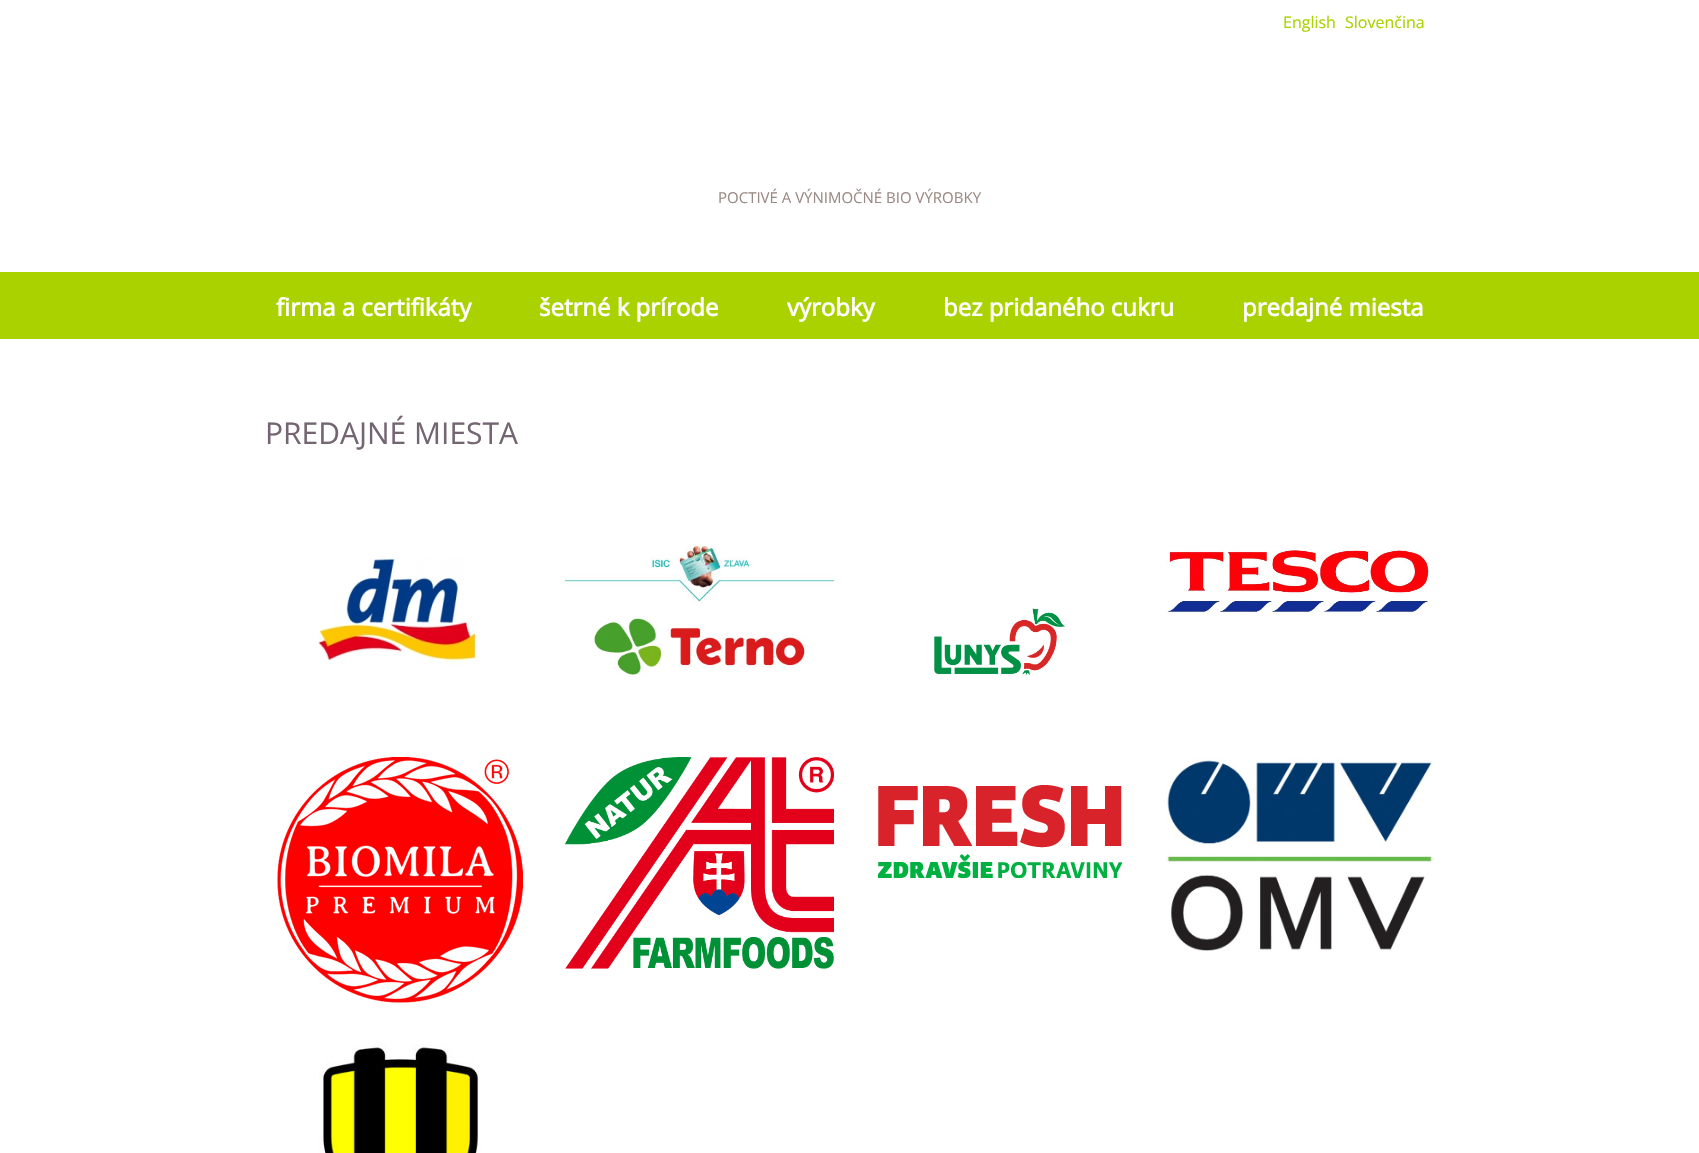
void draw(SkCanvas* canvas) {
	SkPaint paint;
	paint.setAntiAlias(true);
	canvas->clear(0xffffffff);
	SkFont f1(fontMgr->matchFamilyStyle("Open Sans", SkFontStyle::Normal()), 16);
	f1.setSubpixel(true);
	paint.setColor(0xffaad200);
	canvas->drawString("English", 1283, 28, f1, paint);
	canvas->drawString("Slovenčina", 1345, 28, f1, paint);
	SkFont f2(fontMgr->matchFamilyStyle("Open Sans", SkFontStyle::Normal()), 15);
	f2.setSubpixel(true);
	paint.setColor(0xff9b8a83);
	canvas->drawString("POCTIVÉ A VÝNIMOČNÉ BIO VÝROBKY", 718, 203, f2, paint);
	paint.setColor(0xffaad200);
	canvas->drawRect(SkRect::MakeXYWH(0, 272, 1699, 67), paint);
	SkFont f3(fontMgr->matchFamilyStyle("Open Sans", SkFontStyle::Bold()), 24);
	f3.setSubpixel(true);
	paint.setColor(0xffffffff);
	canvas->drawString("firma a certifikáty", 276, 316, f3, paint);
	canvas->drawString("šetrné k prírode", 539, 316, f3, paint);
	canvas->drawString("výrobky", 787, 316, f3, paint);
	canvas->drawString("bez pridaného cukru", 943, 316, f3, paint);
	canvas->drawString("predajné miesta", 1242, 316, f3, paint);
	SkFont f4(fontMgr->matchFamilyStyle("Open Sans", SkFontStyle::Normal()), 30);
	f4.setSubpixel(true);
	paint.setColor(0xff746572);
	canvas->drawString("PREDAJNÉ MIESTA", 265, 444, f4, paint);
	canvas->drawImageRect(SkImages::DeferredFromEncodedData(SkData::MakeFromFileName("img1.png")), SkRect::MakeXYWH(315, 556, 163, 110), SkSamplingOptions());
	canvas->drawImageRect(SkImages::DeferredFromEncodedData(SkData::MakeFromFileName("img2.png")), SkRect::MakeXYWH(565, 546, 269, 132), SkSamplingOptions());
	canvas->drawImageRect(SkImages::DeferredFromEncodedData(SkData::MakeFromFileName("img3.png")), SkRect::MakeXYWH(934, 608, 131, 68), SkSamplingOptions());
	canvas->drawImageRect(SkImages::DeferredFromEncodedData(SkData::MakeFromFileName("img4.png")), SkRect::MakeXYWH(1166, 550, 264, 64), SkSamplingOptions());
	canvas->drawImageRect(SkImages::DeferredFromEncodedData(SkData::MakeFromFileName("img5.png")), SkRect::MakeXYWH(277, 757, 246, 246), SkSamplingOptions());
	canvas->drawImageRect(SkImages::DeferredFromEncodedData(SkData::MakeFromFileName("img6.png")), SkRect::MakeXYWH(565, 757, 269, 212), SkSamplingOptions());
	canvas->drawImageRect(SkImages::DeferredFromEncodedData(SkData::MakeFromFileName("img7.png")), SkRect::MakeXYWH(878, 785, 244, 93), SkSamplingOptions());
	canvas->drawImageRect(SkImages::DeferredFromEncodedData(SkData::MakeFromFileName("img8.png")), SkRect::MakeXYWH(1165, 757, 269, 194), SkSamplingOptions());
	canvas->drawImageRect(SkImages::DeferredFromEncodedData(SkData::MakeFromFileName("img9.png")), SkRect::MakeXYWH(319, 1044, 160, 109), SkSamplingOptions());
}
